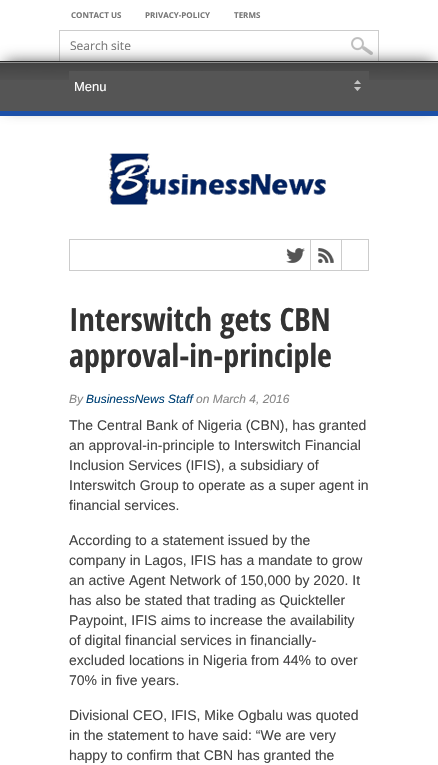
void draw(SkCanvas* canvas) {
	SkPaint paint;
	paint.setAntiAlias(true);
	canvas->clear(0xffffffff);
	SkFont f1(fontMgr->matchFamilyStyle("Open Sans", SkFontStyle::Bold()), 8);
	f1.setSubpixel(true);
	paint.setColor(0xff777777);
	canvas->drawString("CONTACT US", 71, 18, f1, paint);
	canvas->drawString("PRIVACY-POLICY", 145, 18, f1, paint);
	canvas->drawString("TERMS", 234, 18, f1, paint);
	paint.setColor(0xffcccccc);
	canvas->drawRect(SkRect::MakeXYWH(59, 30, 320, 1), paint);
	canvas->drawRect(SkRect::MakeXYWH(378, 30, 1, 31), paint);
	canvas->drawRect(SkRect::MakeXYWH(59, 30, 1, 31), paint);
	canvas->drawImageRect(SkImages::DeferredFromEncodedData(SkData::MakeFromFileName("img1.png")), SkRect::MakeXYWH(351, 37, 22, 18), SkSamplingOptions());
	SkFont f2(fontMgr->matchFamilyStyle("Open Sans", SkFontStyle::Normal()), 12);
	f2.setSubpixel(true);
	paint.setColor(0xff777777);
	canvas->drawString("Search site", 70, 50, f2, paint);
	paint.setColor(0xff555555);
	paint.setMaskFilter(SkMaskFilter::MakeBlur(kNormal_SkBlurStyle, 7.5));
	canvas->drawRect(SkRect::MakeXYWH(5, 62, 428, 45), paint);
	paint.setMaskFilter(nullptr);
	canvas->drawRect(SkRect::MakeXYWH(0, 61, 438, 50), paint);
	canvas->drawImageRect(SkImages::DeferredFromEncodedData(SkData::MakeFromFileName("img2.png")), SkRect::MakeXYWH(0, 61, 438, 19), SkSamplingOptions());
	paint.setColor(0xff1c50a8);
	canvas->drawRect(SkRect::MakeXYWH(0, 111, 438, 5), paint);
	paint.setColor(0xff555555);
	canvas->drawRect(SkRect::MakeXYWH(69, 71, 300, 9), paint);
	canvas->drawImageRect(SkImages::DeferredFromEncodedData(SkData::MakeFromFileName("img3.png")), SkRect::MakeXYWH(354, 80, 7, 11), SkSamplingOptions());
	SkFont f3(fontMgr->matchFamilyStyle("Liberation Sans", SkFontStyle::Normal()), 13);
	f3.setSubpixel(true);
	paint.setColor(0xffffffff);
	canvas->drawString("Menu", 74, 91, f3, paint);
	canvas->drawImageRect(SkImages::DeferredFromEncodedData(SkData::MakeFromFileName("img4.png")), SkRect::MakeXYWH(108, 153, 218, 52), SkSamplingOptions());
	paint.setStroke(true);
	paint.setStrokeWidth(1);
	paint.setColor(0xffcccccc);
	canvas->drawRect(SkRect::MakeXYWH(69.5, 239.5, 299, 31), paint);
	paint.setStroke(false);
	canvas->drawRect(SkRect::MakeXYWH(310, 240, 1, 30), paint);
	canvas->drawImageRect(SkImages::DeferredFromEncodedData(SkData::MakeFromFileName("img5.png")), SkRect::MakeXYWH(286, 248, 19, 15), SkSamplingOptions());
	canvas->drawRect(SkRect::MakeXYWH(341, 240, 1, 30), paint);
	canvas->drawImageRect(SkImages::DeferredFromEncodedData(SkData::MakeFromFileName("img6.png")), SkRect::MakeXYWH(318, 248, 16, 15), SkSamplingOptions());
	SkFont f4(fontMgr->matchFamilyStyle("Open Sans Condensed", SkFontStyle::Bold()), 32);
	f4.setSubpixel(true);
	paint.setColor(0xff333333);
	canvas->drawString("Interswitch gets CBN", 69, 331, f4, paint);
	canvas->save();
	canvas->clipRect(SkRect::MakeXYWH(69, 301, 300, 72));
	canvas->drawString("approval-in-principle", 69, 367, f4, paint);
	canvas->restore();
	SkFont f5(fontMgr->matchFamilyStyle("Liberation Sans", SkFontStyle::Italic()), 12);
	f5.setSubpixel(true);
	paint.setColor(0xff888888);
	canvas->drawString("By", 69, 403, f5, paint);
	paint.setColor(0xff004276);
	canvas->drawString("BusinessNews Staff", 86, 403, f5, paint);
	paint.setColor(0xff888888);
	canvas->drawString("on March 4, 2016", 196, 403, f5, paint);
	SkFont f6(fontMgr->matchFamilyStyle("Liberation Sans", SkFontStyle::Normal()), 14);
	f6.setSubpixel(true);
	paint.setColor(0xff444444);
	canvas->drawString("The Central Bank of Nigeria (CBN), has granted", 69, 430, f6, paint);
	canvas->drawString("an approval-in-principle to Interswitch Financial", 69, 450, f6, paint);
	canvas->drawString("Inclusion Services (IFIS), a subsidiary of", 69, 470, f6, paint);
	canvas->drawString("Interswitch Group to operate as a super agent in", 69, 490, f6, paint);
	canvas->drawString("financial services.", 69, 510, f6, paint);
	canvas->drawString("According to a statement issued by the", 69, 545, f6, paint);
	canvas->drawString("company in Lagos, IFIS has a mandate to grow", 69, 565, f6, paint);
	canvas->drawString("an active Agent Network of 150,000 by 2020. It", 69, 585, f6, paint);
	canvas->drawString("has also be stated that trading as Quickteller", 69, 605, f6, paint);
	canvas->drawString("Paypoint, IFIS aims to increase the availability", 69, 625, f6, paint);
	canvas->drawString("of digital financial services in financially-", 69, 645, f6, paint);
	canvas->drawString("excluded locations in Nigeria from 44% to over", 69, 665, f6, paint);
	canvas->drawString("70% in five years.", 69, 685, f6, paint);
	canvas->drawString("Divisional CEO, IFIS, Mike Ogbalu was quoted", 69, 720, f6, paint);
	canvas->drawString("in the statement to have said: “We are very", 69, 740, f6, paint);
	canvas->drawString("happy to confirm that CBN has granted the", 69, 760, f6, paint);
}
